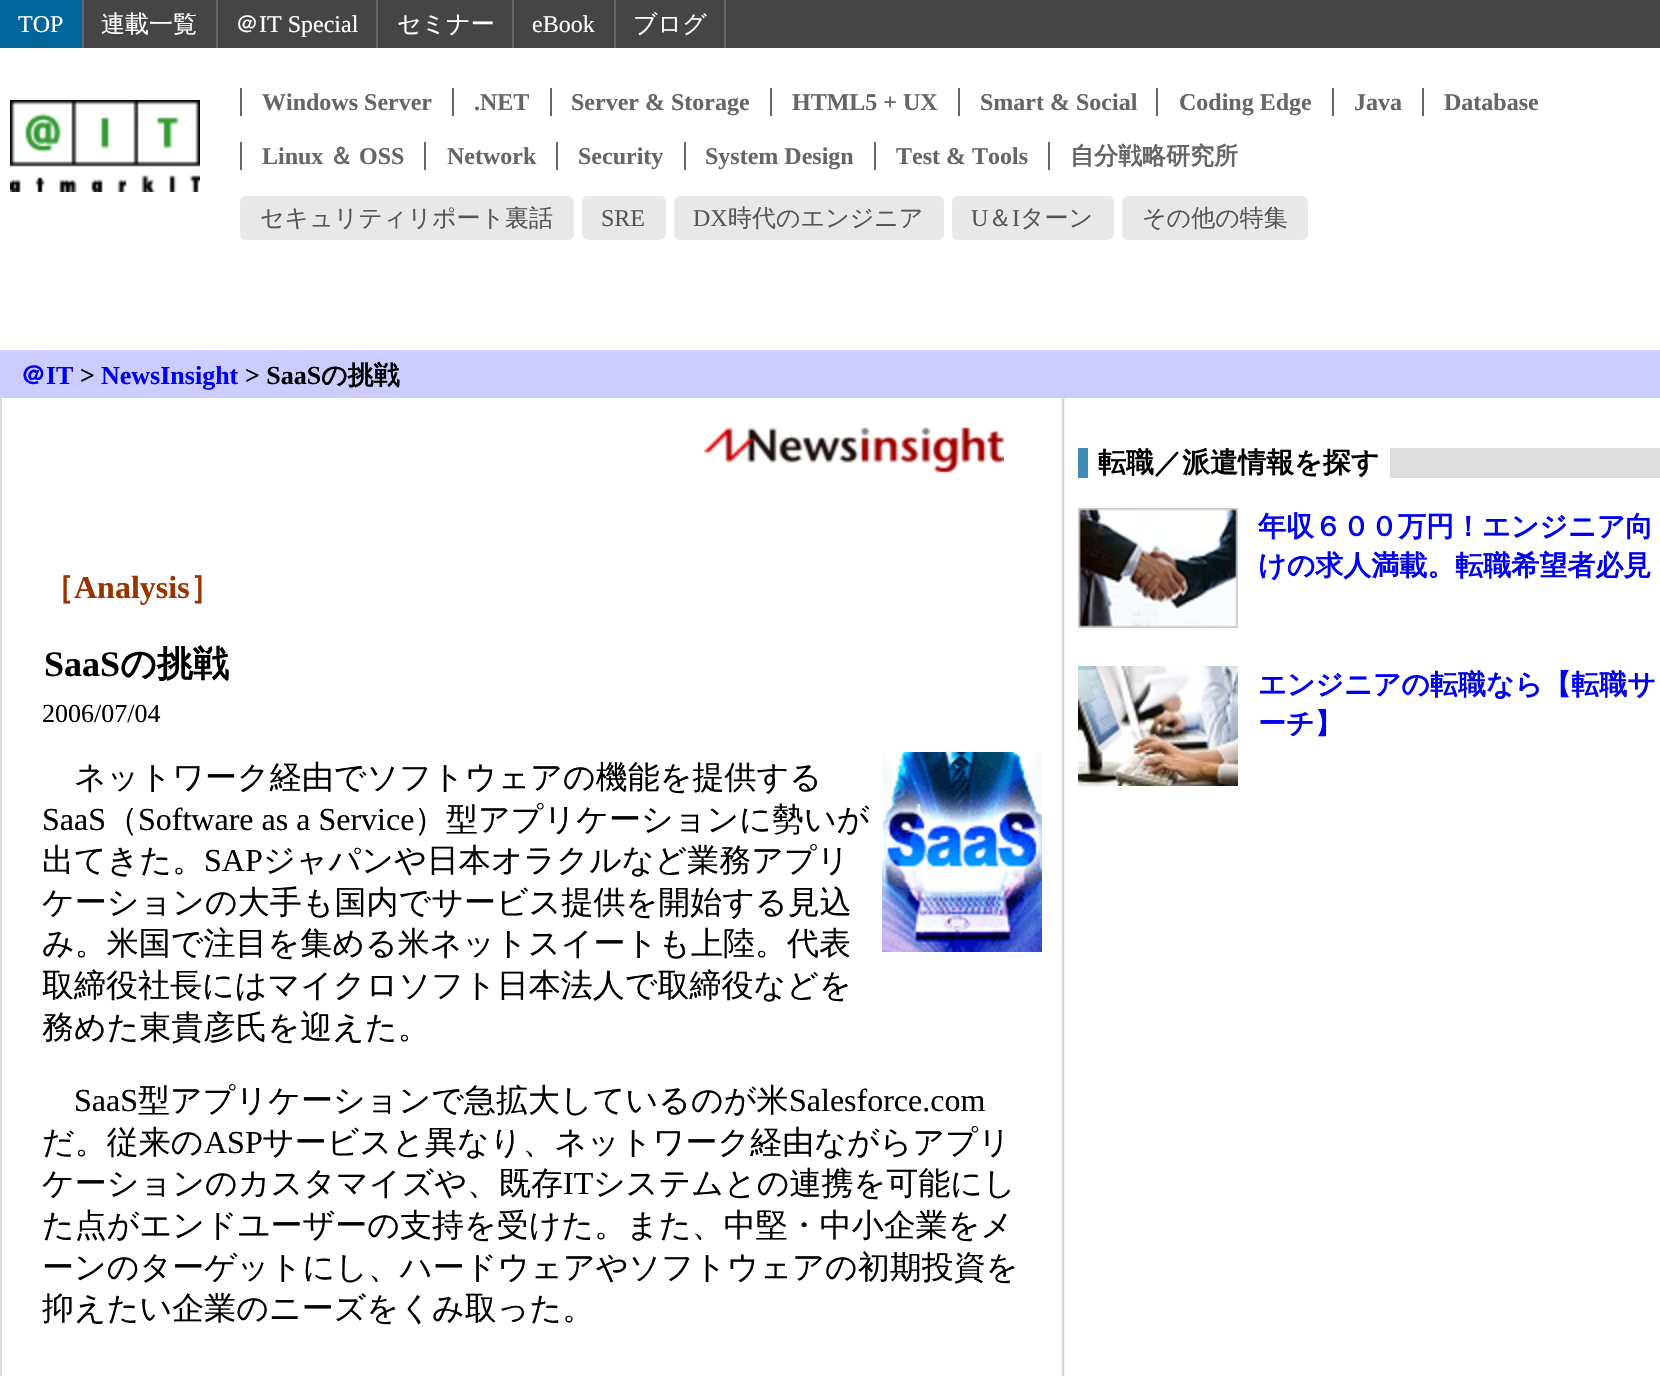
void draw(SkCanvas* canvas) {
	SkPaint paint;
	paint.setAntiAlias(true);
	canvas->clear(0xffffffff);
	paint.setColor(0xff454545);
	canvas->drawRect(SkRect::MakeXYWH(84, 0, 1576, 48), paint);
	paint.setColor(0xff666666);
	canvas->drawRect(SkRect::MakeXYWH(82, 0, 2, 48), paint);
	paint.setColor(0xff006599);
	canvas->drawRect(SkRect::MakeXYWH(0, 0, 82, 48), paint);
	SkFont f1(fontMgr->matchFamilyStyle("Liberation Serif", SkFontStyle::Normal()), 24);
	f1.setSubpixel(true);
	paint.setColor(0xffffffff);
	canvas->drawString("TOP", 18, 32, f1, paint);
	paint.setColor(0xff666666);
	canvas->drawRect(SkRect::MakeXYWH(216, 0, 2, 48), paint);
	SkFont f2(fontMgr->matchFamilyStyle("WenQuanYi Zen Hei", SkFontStyle(500, SkFontStyle::kNormal_Width, SkFontStyle::kUpright_Slant)), 24);
	f2.setSubpixel(true);
	paint.setColor(0xffffffff);
	canvas->drawString("連載一覧", 101, 32, f2, paint);
	paint.setColor(0xff666666);
	canvas->drawRect(SkRect::MakeXYWH(376, 0, 2, 48), paint);
	paint.setColor(0xffffffff);
	canvas->drawString("＠", 235, 32, f2, paint);
	canvas->drawString("IT Special", 259, 32, f1, paint);
	paint.setColor(0xff666666);
	canvas->drawRect(SkRect::MakeXYWH(512, 0, 2, 48), paint);
	paint.setColor(0xffffffff);
	canvas->drawString("セミナー", 397, 32, f2, paint);
	paint.setColor(0xff666666);
	canvas->drawRect(SkRect::MakeXYWH(614, 0, 2, 48), paint);
	paint.setColor(0xffffffff);
	canvas->drawString("eBook", 532, 32, f1, paint);
	paint.setColor(0xff666666);
	canvas->drawRect(SkRect::MakeXYWH(724, 0, 2, 48), paint);
	paint.setColor(0xffffffff);
	canvas->drawString("ブログ", 633, 32, f2, paint);
	canvas->drawImageRect(SkImages::DeferredFromEncodedData(SkData::MakeFromFileName("img1.png")), SkRect::MakeXYWH(10, 100, 190, 92), SkSamplingOptions());
	paint.setColor(0xff666666);
	canvas->drawRect(SkRect::MakeXYWH(240, 88, 2, 28), paint);
	SkFont f3(fontMgr->matchFamilyStyle("Liberation Serif", SkFontStyle::Bold()), 24);
	f3.setSubpixel(true);
	canvas->drawString("Windows Server", 262, 110, f3, paint);
	canvas->drawRect(SkRect::MakeXYWH(452, 88, 2, 28), paint);
	canvas->drawString(".NET", 474, 110, f3, paint);
	canvas->drawRect(SkRect::MakeXYWH(550, 88, 2, 28), paint);
	canvas->drawString("Server & Storage", 571, 110, f3, paint);
	canvas->drawRect(SkRect::MakeXYWH(770, 88, 2, 28), paint);
	canvas->drawString("HTML5 + UX", 792, 110, f3, paint);
	canvas->drawRect(SkRect::MakeXYWH(958, 88, 2, 28), paint);
	canvas->drawString("Smart & Social", 980, 110, f3, paint);
	canvas->drawRect(SkRect::MakeXYWH(1156, 88, 2, 28), paint);
	canvas->drawString("Coding Edge", 1179, 110, f3, paint);
	canvas->drawRect(SkRect::MakeXYWH(1332, 88, 2, 28), paint);
	canvas->drawString("Java", 1354, 110, f3, paint);
	canvas->drawRect(SkRect::MakeXYWH(1422, 88, 2, 28), paint);
	canvas->drawString("Database", 1444, 110, f3, paint);
	canvas->drawRect(SkRect::MakeXYWH(240, 142, 2, 28), paint);
	canvas->drawString("Linux", 262, 164, f3, paint);
	SkFont f4(fontMgr->matchFamilyStyle("WenQuanYi Zen Hei", SkFontStyle::Bold()), 24);
	f4.setSubpixel(true);
	canvas->drawString("＆", 329, 164, f4, paint);
	canvas->drawString("OSS", 359, 164, f3, paint);
	canvas->drawRect(SkRect::MakeXYWH(424, 142, 2, 28), paint);
	canvas->drawString("Network", 447, 164, f3, paint);
	canvas->drawRect(SkRect::MakeXYWH(556, 142, 2, 28), paint);
	canvas->drawString("Security", 578, 164, f3, paint);
	canvas->drawRect(SkRect::MakeXYWH(684, 142, 2, 28), paint);
	canvas->drawString("System Design", 705, 164, f3, paint);
	canvas->drawRect(SkRect::MakeXYWH(874, 142, 2, 28), paint);
	canvas->drawString("Test & Tools", 896, 164, f3, paint);
	canvas->drawRect(SkRect::MakeXYWH(1048, 142, 2, 28), paint);
	canvas->drawString("自分戦略研究所", 1070, 164, f4, paint);
	paint.setColor(0xffe8e8e8);
	canvas->drawRoundRect(SkRect::MakeXYWH(240, 196, 334, 44), 6, 6, paint);
	paint.setColor(0xff555555);
	canvas->drawString("セキュリティリポート裏話", 260, 226, f2, paint);
	paint.setColor(0xffe8e8e8);
	canvas->drawRoundRect(SkRect::MakeXYWH(582, 196, 84, 44), 6, 6, paint);
	paint.setColor(0xff555555);
	canvas->drawString("SRE", 601, 226, f1, paint);
	paint.setColor(0xffe8e8e8);
	canvas->drawRoundRect(SkRect::MakeXYWH(674, 196, 270, 44), 6, 6, paint);
	paint.setColor(0xff555555);
	canvas->drawString("DX", 693, 226, f1, paint);
	canvas->drawString("時代のエンジニア", 728, 226, f2, paint);
	paint.setColor(0xffe8e8e8);
	canvas->drawRoundRect(SkRect::MakeXYWH(952, 196, 162, 44), 6, 6, paint);
	paint.setColor(0xff555555);
	canvas->drawString("U", 971, 226, f1, paint);
	canvas->drawString("＆", 988, 226, f2, paint);
	canvas->drawString("I", 1012, 226, f1, paint);
	canvas->drawString("ターン", 1020, 226, f2, paint);
	paint.setColor(0xffe8e8e8);
	canvas->drawRoundRect(SkRect::MakeXYWH(1122, 196, 186, 44), 6, 6, paint);
	paint.setColor(0xff555555);
	canvas->drawString("その他の特集", 1142, 226, f2, paint);
	paint.setColor(0xffccccff);
	canvas->drawRect(SkRect::MakeXYWH(0, 350, 1660, 48), paint);
	SkFont f5(fontMgr->matchFamilyStyle("WenQuanYi Zen Hei", SkFontStyle::Bold()), 26);
	f5.setSubpixel(true);
	paint.setColor(0xff0000ee);
	canvas->drawString("＠", 20, 384, f5, paint);
	SkFont f6(fontMgr->matchFamilyStyle("Liberation Serif", SkFontStyle::Bold()), 26);
	f6.setSubpixel(true);
	canvas->drawString("IT", 46, 384, f6, paint);
	paint.setColor(0xff000000);
	canvas->drawString(">", 80, 384, f6, paint);
	paint.setColor(0xff0000ee);
	canvas->drawString("NewsInsight", 101, 384, f6, paint);
	paint.setColor(0xff000000);
	canvas->drawString("> SaaS", 245, 384, f6, paint);
	canvas->drawString("の挑戦", 321, 384, f5, paint);
	canvas->drawImageRect(SkImages::DeferredFromEncodedData(SkData::MakeFromFileName("img2.png")), SkRect::MakeXYWH(1061, 398, 4, 978), SkSamplingOptions());
	paint.setColor(0xffdddddd);
	canvas->drawRect(SkRect::MakeXYWH(0, 398, 2, 978), paint);
	SkFont f7(fontMgr->matchFamilyStyle("WenQuanYi Zen Hei", SkFontStyle::Bold()), 32);
	f7.setSubpixel(true);
	paint.setColor(0xff993300);
	canvas->drawString("［", 42, 598, f7, paint);
	SkFont f8(fontMgr->matchFamilyStyle("Liberation Serif", SkFontStyle::Bold()), 32);
	f8.setSubpixel(true);
	canvas->drawString("Analysis", 74, 598, f8, paint);
	canvas->drawString("］", 190, 598, f7, paint);
	SkFont f9(fontMgr->matchFamilyStyle("Liberation Serif", SkFontStyle::Bold()), 36);
	f9.setSubpixel(true);
	paint.setColor(0xff000000);
	canvas->drawString("SaaS", 44, 676, f9, paint);
	SkFont f10(fontMgr->matchFamilyStyle("WenQuanYi Zen Hei", SkFontStyle::Bold()), 36);
	f10.setSubpixel(true);
	canvas->drawString("の挑戦", 120, 676, f10, paint);
	SkFont f11(fontMgr->matchFamilyStyle("Liberation Serif", SkFontStyle::Normal()), 26);
	f11.setSubpixel(true);
	canvas->drawString("2006/07/04", 42, 722, f11, paint);
	SkFont f12(fontMgr->matchFamilyStyle("WenQuanYi Zen Hei", SkFontStyle(500, SkFontStyle::kNormal_Width, SkFontStyle::kUpright_Slant)), 32);
	f12.setSubpixel(true);
	canvas->drawString("ネットワーク経由でソフトウェアの機能を提供する", 74, 788, f12, paint);
	SkFont f13(fontMgr->matchFamilyStyle("Liberation Serif", SkFontStyle::Normal()), 32);
	f13.setSubpixel(true);
	canvas->drawString("SaaS", 42, 830, f13, paint);
	canvas->drawString("（", 106, 830, f12, paint);
	canvas->drawString("Software as a Service", 138, 830, f13, paint);
	canvas->drawString("）型アプリケーションに勢いが", 414, 830, f12, paint);
	canvas->drawString("出てきた。", 42, 871, f12, paint);
	canvas->drawString("SAP", 204, 871, f13, paint);
	canvas->drawString("ジャパンや日本オラクルなど業務アプリ", 263, 871, f12, paint);
	canvas->drawString("ケーションの大手も国内でサービス提供を開始する見込", 42, 913, f12, paint);
	canvas->drawString("み。米国で注目を集める米ネットスイートも上陸。代表", 42, 954, f12, paint);
	canvas->drawString("取締役社長にはマイクロソフト日本法人で取締役などを", 42, 996, f12, paint);
	canvas->drawString("務めた東貴彦氏を迎えた。", 42, 1038, f12, paint);
	canvas->drawImageRect(SkImages::DeferredFromEncodedData(SkData::MakeFromFileName("img3.png")), SkRect::MakeXYWH(882, 752, 160, 200), SkSamplingOptions());
	canvas->drawString("SaaS", 74, 1111, f13, paint);
	canvas->drawString("型アプリケーションで急拡大しているのが米", 138, 1111, f12, paint);
	canvas->drawString("Salesforce.com", 789, 1111, f13, paint);
	canvas->drawString("だ。従来の", 42, 1153, f12, paint);
	canvas->drawString("ASP", 204, 1153, f13, paint);
	canvas->drawString("サービスと異なり、ネットワーク経由ながらアプリ", 262, 1153, f12, paint);
	canvas->drawString("ケーションのカスタマイズや、既存", 42, 1194, f12, paint);
	canvas->drawString("IT", 563, 1194, f13, paint);
	canvas->drawString("システムとの連携を可能にし", 593, 1194, f12, paint);
	canvas->drawString("た点がエンドユーザーの支持を受けた。また、中堅・中小企業をメ", 42, 1236, f12, paint);
	canvas->drawString("ーンのターゲットにし、ハードウェアやソフトウェアの初期投資を", 42, 1278, f12, paint);
	canvas->drawString("抑えたい企業のニーズをくみ取った。", 42, 1319, f12, paint);
	canvas->drawImageRect(SkImages::DeferredFromEncodedData(SkData::MakeFromFileName("img4.png")), SkRect::MakeXYWH(704, 427, 300, 46), SkSamplingOptions());
	paint.setColor(0xffdddddd);
	canvas->drawRect(SkRect::MakeXYWH(1390, 448, 270, 30), paint);
	paint.setColor(0xff408cb3);
	canvas->drawRect(SkRect::MakeXYWH(1078, 448, 10, 30), paint);
	SkFont f14(fontMgr->matchFamilyStyle("WenQuanYi Zen Hei", SkFontStyle::Bold()), 28);
	f14.setSubpixel(true);
	paint.setColor(0xff000000);
	canvas->drawString("転職／派遣情報を探す", 1098, 472, f14, paint);
	canvas->drawImageRect(SkImages::DeferredFromEncodedData(SkData::MakeFromFileName("img5.png")), SkRect::MakeXYWH(1078, 508, 160, 120), SkSamplingOptions());
	paint.setColor(0xff0000ee);
	canvas->drawString("年収６００万円！エンジニア向", 1258, 536, f14, paint);
	canvas->drawString("けの求人満載。転職希望者必見", 1258, 575, f14, paint);
	canvas->drawImageRect(SkImages::DeferredFromEncodedData(SkData::MakeFromFileName("img6.png")), SkRect::MakeXYWH(1078, 666, 160, 120), SkSamplingOptions());
	canvas->drawString("エンジニアの転職なら【転職サ", 1258, 694, f14, paint);
	canvas->drawString("ーチ】", 1258, 733, f14, paint);
}
